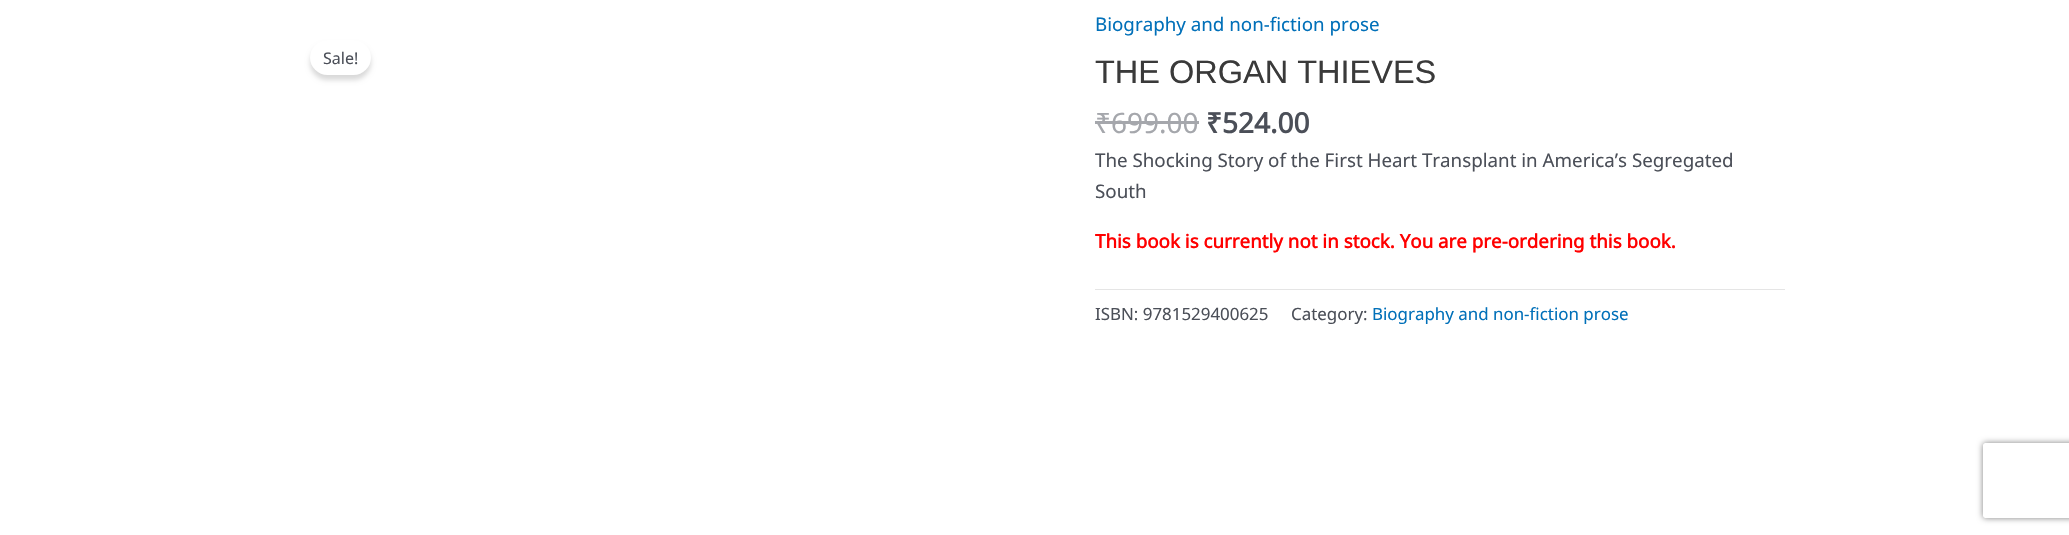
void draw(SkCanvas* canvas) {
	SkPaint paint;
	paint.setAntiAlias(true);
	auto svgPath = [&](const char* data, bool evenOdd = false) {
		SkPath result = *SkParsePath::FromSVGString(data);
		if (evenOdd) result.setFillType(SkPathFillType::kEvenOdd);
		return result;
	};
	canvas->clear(0xffffffff);
	paint.setColor(0x26000000);
	paint.setMaskFilter(SkMaskFilter::MakeBlur(kNormal_SkBlurStyle, 2.5));
	canvas->drawRoundRect(SkRect::MakeXYWH(310, 45, 61, 35), 17.5, 17.5, paint);
	paint.setMaskFilter(nullptr);
	paint.setColor(0xffffffff);
	canvas->drawRoundRect(SkRect::MakeXYWH(310, 40, 61, 35), 17.5, 17.5, paint);
	SkFont f1(fontMgr->matchFamilyStyle("Noto Sans", SkFontStyle::Normal()), 16);
	f1.setSubpixel(true);
	paint.setColor(0xff4b4f58);
	canvas->drawString("Sale!", 323, 64, f1, paint);
	SkFont f2(fontMgr->matchFamilyStyle("Noto Sans", SkFontStyle::Normal()), 18.75);
	f2.setSubpixel(true);
	paint.setColor(0xff0170b9);
	canvas->drawString("Biography and non-fiction prose", 1095, 31, f2, paint);
	SkFont f3(fontMgr->matchFamilyStyle("Liberation Sans", SkFontStyle::Normal()), 32.5);
	f3.setSubpixel(true);
	paint.setColor(0xff3a3a3a);
	canvas->drawString("THE ORGAN THIEVES", 1095, 83, f3, paint);
	SkFont f4(fontMgr->matchFamilyStyle("Noto Sans", SkFontStyle::Normal()), 28);
	f4.setSubpixel(true);
	paint.setColor(0xffa5a7ac);
	canvas->drawString("₹699.00", 1095, 133, f4, paint);
	canvas->drawRect(SkRect::MakeXYWH(1095, 121, 104, 3), paint);
	SkFont f5(fontMgr->matchFamilyStyle("Noto Sans", SkFontStyle::Bold()), 28);
	f5.setSubpixel(true);
	paint.setColor(0xff4b4f58);
	canvas->drawString("₹524.00", 1206, 133, f5, paint);
	canvas->drawString("The Shocking Story of the First Heart Transplant in America’s Segregated", 1095, 167, f2, paint);
	canvas->drawString("South", 1095, 198, f2, paint);
	SkFont f6(fontMgr->matchFamilyStyle("Noto Sans", SkFontStyle::Bold()), 18.75);
	f6.setSubpixel(true);
	paint.setColor(0xffff0000);
	canvas->drawString("This book is currently not in stock. You are pre-ordering this book.", 1095, 248, f6, paint);
	paint.setColor(0xffe5e5e5);
	canvas->drawRect(SkRect::MakeXYWH(1095, 289, 690, 1), paint);
	SkFont f7(fontMgr->matchFamilyStyle("Noto Sans", SkFontStyle::Normal()), 16.9);
	f7.setSubpixel(true);
	paint.setColor(0xff4b4f58);
	canvas->drawString("ISBN: 9781529400625", 1095, 320, f7, paint);
	canvas->drawString("Category:", 1291, 320, f7, paint);
	paint.setColor(0xff0170b9);
	canvas->drawString("Biography and non-fiction prose", 1372, 320, f7, paint);
	canvas->save();
	canvas->clipPath(svgPath("M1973 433H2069V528H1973ZM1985.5 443H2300.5C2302 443 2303 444 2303 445.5V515.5C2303 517 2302 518 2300.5 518H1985.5C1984 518 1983 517 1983 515.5V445.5C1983 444 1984 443 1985.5 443Z", true), true);
	paint.setColor(0xff808080);
	paint.setMaskFilter(SkMaskFilter::MakeBlur(kNormal_SkBlurStyle, 3));
	canvas->drawRoundRect(SkRect::MakeXYWH(1983, 443, 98, 75), 2.5, 2.5, paint);
	paint.setMaskFilter(nullptr);
	canvas->restore();
}
